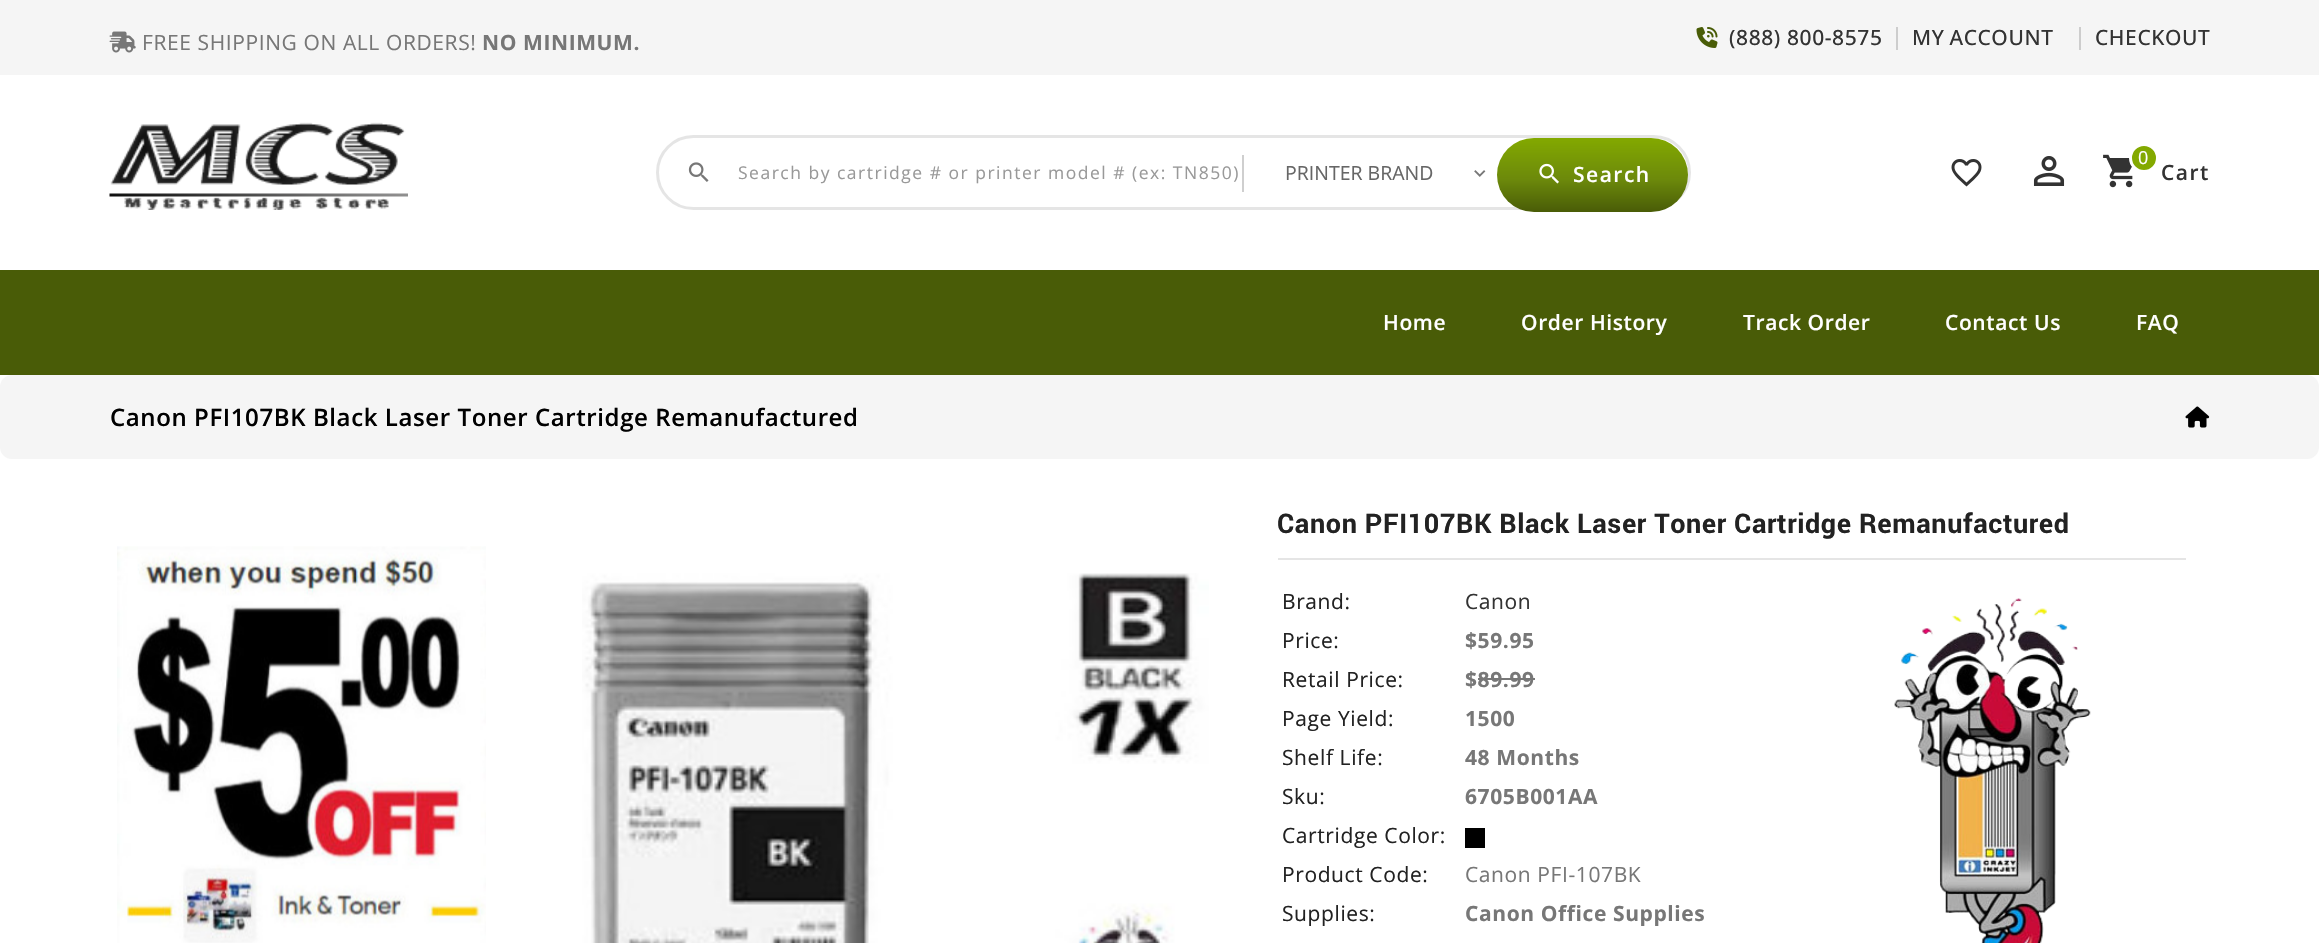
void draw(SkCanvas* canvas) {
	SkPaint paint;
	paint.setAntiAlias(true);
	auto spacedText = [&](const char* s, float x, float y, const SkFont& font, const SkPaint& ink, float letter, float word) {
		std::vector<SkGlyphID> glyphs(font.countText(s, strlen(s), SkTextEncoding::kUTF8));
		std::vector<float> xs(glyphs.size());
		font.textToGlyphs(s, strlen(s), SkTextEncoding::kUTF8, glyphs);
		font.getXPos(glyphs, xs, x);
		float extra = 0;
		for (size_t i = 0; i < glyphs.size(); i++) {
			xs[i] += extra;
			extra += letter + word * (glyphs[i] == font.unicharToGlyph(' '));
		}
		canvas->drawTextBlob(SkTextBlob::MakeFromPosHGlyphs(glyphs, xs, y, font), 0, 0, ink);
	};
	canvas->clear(0xffffffff);
	paint.setColor(0xfff5f5f5);
	canvas->drawRect(SkRect::MakeXYWH(0, 0, 2319, 75), paint);
	canvas->drawImageRect(SkImages::DeferredFromEncodedData(SkData::MakeFromFileName("img1.png")), SkRect::MakeXYWH(109, 31, 27, 22), SkSamplingOptions());
	SkFont f1(fontMgr->matchFamilyStyle("Open Sans", SkFontStyle::Normal()), 21);
	f1.setSubpixel(true);
	paint.setColor(0xff777777);
	spacedText("FREE SHIPPING ON ALL ORDERS!", 142, 50, f1, paint, 0.6, 0);
	SkFont f2(fontMgr->matchFamilyStyle("Open Sans", SkFontStyle::Bold()), 21);
	f2.setSubpixel(true);
	spacedText("NO MINIMUM.", 482, 50, f2, paint, 0.6, 0);
	canvas->drawImageRect(SkImages::DeferredFromEncodedData(SkData::MakeFromFileName("img2.png")), SkRect::MakeXYWH(1696, 27, 22, 21), SkSamplingOptions());
	SkFont f3(fontMgr->matchFamilyStyle("Open Sans", SkFontStyle(500, SkFontStyle::kNormal_Width, SkFontStyle::kUpright_Slant)), 21);
	f3.setSubpixel(true);
	paint.setColor(0xff333333);
	spacedText("(888) 800-8575", 1729, 45, f3, paint, 0.6, 0);
	paint.setColor(0xffcdcdcd);
	canvas->drawRect(SkRect::MakeXYWH(1896, 27, 2, 23), paint);
	paint.setColor(0xff333333);
	spacedText("MY ACCOUNT", 1912, 45, f3, paint, 0.6, -1);
	paint.setColor(0xffcdcdcd);
	canvas->drawRect(SkRect::MakeXYWH(2079, 27, 2, 23), paint);
	paint.setColor(0xff333333);
	spacedText("CHECKOUT", 2095, 45, f3, paint, 0.6, 0);
	canvas->drawImageRect(SkImages::DeferredFromEncodedData(SkData::MakeFromFileName("img3.png")), SkRect::MakeXYWH(109, 122, 299, 88), SkSamplingOptions());
	paint.setStroke(true);
	paint.setStrokeWidth(3);
	paint.setColor(0xffe5e5e5);
	canvas->drawRoundRect(SkRect::MakeXYWH(657.5, 136.5, 1032, 72), 36, 36, paint);
	canvas->drawImageRect(SkImages::DeferredFromEncodedData(SkData::MakeFromFileName("img4.png")), SkRect::MakeXYWH(688, 162, 21, 20), SkSamplingOptions());
	SkFont f4(fontMgr->matchFamilyStyle("Open Sans", SkFontStyle::Normal()), 17.5);
	f4.setSubpixel(true);
	paint.setStroke(false);
	paint.setColor(0xff999999);
	spacedText("Search by cartridge # or printer model # (ex: TN850)", 738, 179, f4, paint, 1.5, 0);
	paint.setColor(0xffcfcfcf);
	canvas->drawRect(SkRect::MakeXYWH(1242, 155, 2, 37), paint);
	SkFont f5(fontMgr->matchFamilyStyle("Open Sans", SkFontStyle::Normal()), 19.5);
	f5.setSubpixel(true);
	paint.setColor(0xff666666);
	canvas->drawString("PRINTER BRAND", 1285, 180, f5, paint);
	canvas->drawImageRect(SkImages::DeferredFromEncodedData(SkData::MakeFromFileName("img5.png")), SkRect::MakeXYWH(1474, 170, 12, 7), SkSamplingOptions());
	{
		const SkColor colors[] = {0xff83a900, 0xff6c890b, 0xff495c07};
		const float stops[] = {0, 0.56, 1};
		const SkPoint ends[] = {{1592, 138}, {1592, 212}};
		paint.setShader(SkGradientShader::MakeLinear(ends, colors, stops, 3, SkTileMode::kClamp));
		paint.setAlpha(255);
	}
	canvas->drawRoundRect(SkRect::MakeXYWH(1497, 138, 191, 74), 37, 37, paint);
	canvas->drawImageRect(SkImages::DeferredFromEncodedData(SkData::MakeFromFileName("img6.png")), SkRect::MakeXYWH(1539, 163, 20, 21), SkSamplingOptions());
	SkFont f6(fontMgr->matchFamilyStyle("Open Sans", SkFontStyle(600, SkFontStyle::kNormal_Width, SkFontStyle::kUpright_Slant)), 21);
	f6.setSubpixel(true);
	paint.setShader(nullptr);
	paint.setColor(0xffffffff);
	spacedText("Search", 1573, 182, f6, paint, 1.5, 0);
	canvas->drawImageRect(SkImages::DeferredFromEncodedData(SkData::MakeFromFileName("img7.png")), SkRect::MakeXYWH(1951, 159, 31, 28), SkSamplingOptions());
	canvas->drawImageRect(SkImages::DeferredFromEncodedData(SkData::MakeFromFileName("img8.png")), SkRect::MakeXYWH(2033, 156, 32, 30), SkSamplingOptions());
	canvas->drawImageRect(SkImages::DeferredFromEncodedData(SkData::MakeFromFileName("img9.png")), SkRect::MakeXYWH(2103, 154, 30, 34), SkSamplingOptions());
	paint.setColor(0xff83a900);
	canvas->drawCircle(2144, 158, 13.5, paint);
	paint.setStroke(true);
	paint.setColor(0xffffffff);
	canvas->drawCircle(2144, 158, 13.5, paint);
	SkFont f7(fontMgr->matchFamilyStyle("Open Sans", SkFontStyle::Normal()), 18);
	f7.setSubpixel(true);
	paint.setStroke(false);
	spacedText("0", 2138, 164, f7, paint, 1.5, 0);
	paint.setColor(0xff333333);
	spacedText("Cart", 2161, 180, f6, paint, 1.5, 0);
	paint.setColor(0xff495c07);
	canvas->drawRect(SkRect::MakeXYWH(0, 270, 2319, 105), paint);
	paint.setColor(0xffffffff);
	spacedText("Home", 1383, 330, f6, paint, 0.6, 0);
	spacedText("Order History", 1521, 330, f6, paint, 0.6, 0);
	spacedText("Track Order", 1743, 330, f6, paint, 0.6, 0);
	spacedText("Contact Us", 1945, 330, f6, paint, 0.6, 0);
	spacedText("FAQ", 2136, 330, f6, paint, 0.6, 0);
	paint.setColor(0xfff5f5f5);
	canvas->drawRoundRect(SkRect::MakeXYWH(0, 375, 2319, 84), 12, 12, paint);
	SkFont f8(fontMgr->matchFamilyStyle("Open Sans", SkFontStyle(600, SkFontStyle::kNormal_Width, SkFontStyle::kUpright_Slant)), 24);
	f8.setSubpixel(true);
	paint.setColor(0xff000000);
	spacedText("Canon PFI107BK Black Laser Toner Cartridge Remanufactured", 110, 426, f8, paint, 0.6, 0);
	canvas->drawImageRect(SkImages::DeferredFromEncodedData(SkData::MakeFromFileName("img10.png")), SkRect::MakeXYWH(2185, 406, 25, 22), SkSamplingOptions());
	canvas->drawImageRect(SkImages::DeferredFromEncodedData(SkData::MakeFromFileName("img11.png")), SkRect::MakeXYWH(117, 546, 369, 397), SkSamplingOptions());
	canvas->drawImageRect(SkImages::DeferredFromEncodedData(SkData::MakeFromFileName("img12.png")), SkRect::MakeXYWH(582, 573, 627, 370), SkSamplingOptions());
	paint.setColor(0xffe5e5e5);
	canvas->drawRect(SkRect::MakeXYWH(1278, 558, 908, 2), paint);
	SkFont f9(fontMgr->matchFamilyStyle("Roboto", SkFontStyle::Bold()), 27);
	f9.setSubpixel(true);
	paint.setColor(0xff222222);
	spacedText("Canon PFI107BK Black Laser Toner Cartridge Remanufactured", 1277, 533, f9, paint, 0.6, 0);
	spacedText("Brand:", 1282, 609, f1, paint, 0.6, 0);
	paint.setColor(0xff333333);
	spacedText("Canon", 1465, 609, f1, paint, 0.6, 0);
	paint.setColor(0xff222222);
	spacedText("Price:", 1282, 648, f1, paint, 0.6, 0);
	paint.setColor(0xff777777);
	spacedText("$59.95", 1465, 648, f2, paint, 0.6, 0);
	paint.setColor(0xff222222);
	spacedText("Retail Price:", 1282, 687, f1, paint, 0.6, 0);
	paint.setColor(0xff777777);
	spacedText("$89.99", 1465, 687, f2, paint, 0.6, 0);
	canvas->drawRect(SkRect::MakeXYWH(1478, 678, 57, 2), paint);
	paint.setColor(0xff222222);
	spacedText("Page Yield:", 1282, 726, f1, paint, 0.6, 0);
	paint.setColor(0xff777777);
	spacedText("1500", 1465, 726, f2, paint, 0.6, 0);
	paint.setColor(0xff222222);
	spacedText("Shelf Life:", 1282, 765, f1, paint, 0.6, 0);
	paint.setColor(0xff777777);
	spacedText("48 Months", 1465, 765, f2, paint, 0.6, 0);
	paint.setColor(0xff222222);
	spacedText("Sku:", 1282, 804, f1, paint, 0.6, 0);
	paint.setColor(0xff777777);
	spacedText("6705B001AA", 1465, 804, f2, paint, 0.6, 0);
	paint.setColor(0xff222222);
	spacedText("Cartridge Color:", 1282, 843, f1, paint, 0.6, 0);
	paint.setColor(0xff000000);
	canvas->drawRect(SkRect::MakeXYWH(1465, 828, 20, 20), paint);
	paint.setColor(0xff222222);
	spacedText("Product Code:", 1282, 882, f1, paint, 0.6, 0);
	paint.setColor(0xff777777);
	spacedText("Canon PFI-107BK", 1465, 882, f1, paint, 0.6, 0);
	paint.setColor(0xff222222);
	spacedText("Supplies:", 1282, 921, f1, paint, 0.6, 0);
	paint.setColor(0xff777777);
	spacedText("Canon Office Supplies", 1465, 921, f2, paint, 0.6, 0);
	canvas->drawImageRect(SkImages::DeferredFromEncodedData(SkData::MakeFromFileName("img13.png")), SkRect::MakeXYWH(1894, 598, 197, 345), SkSamplingOptions());
}
